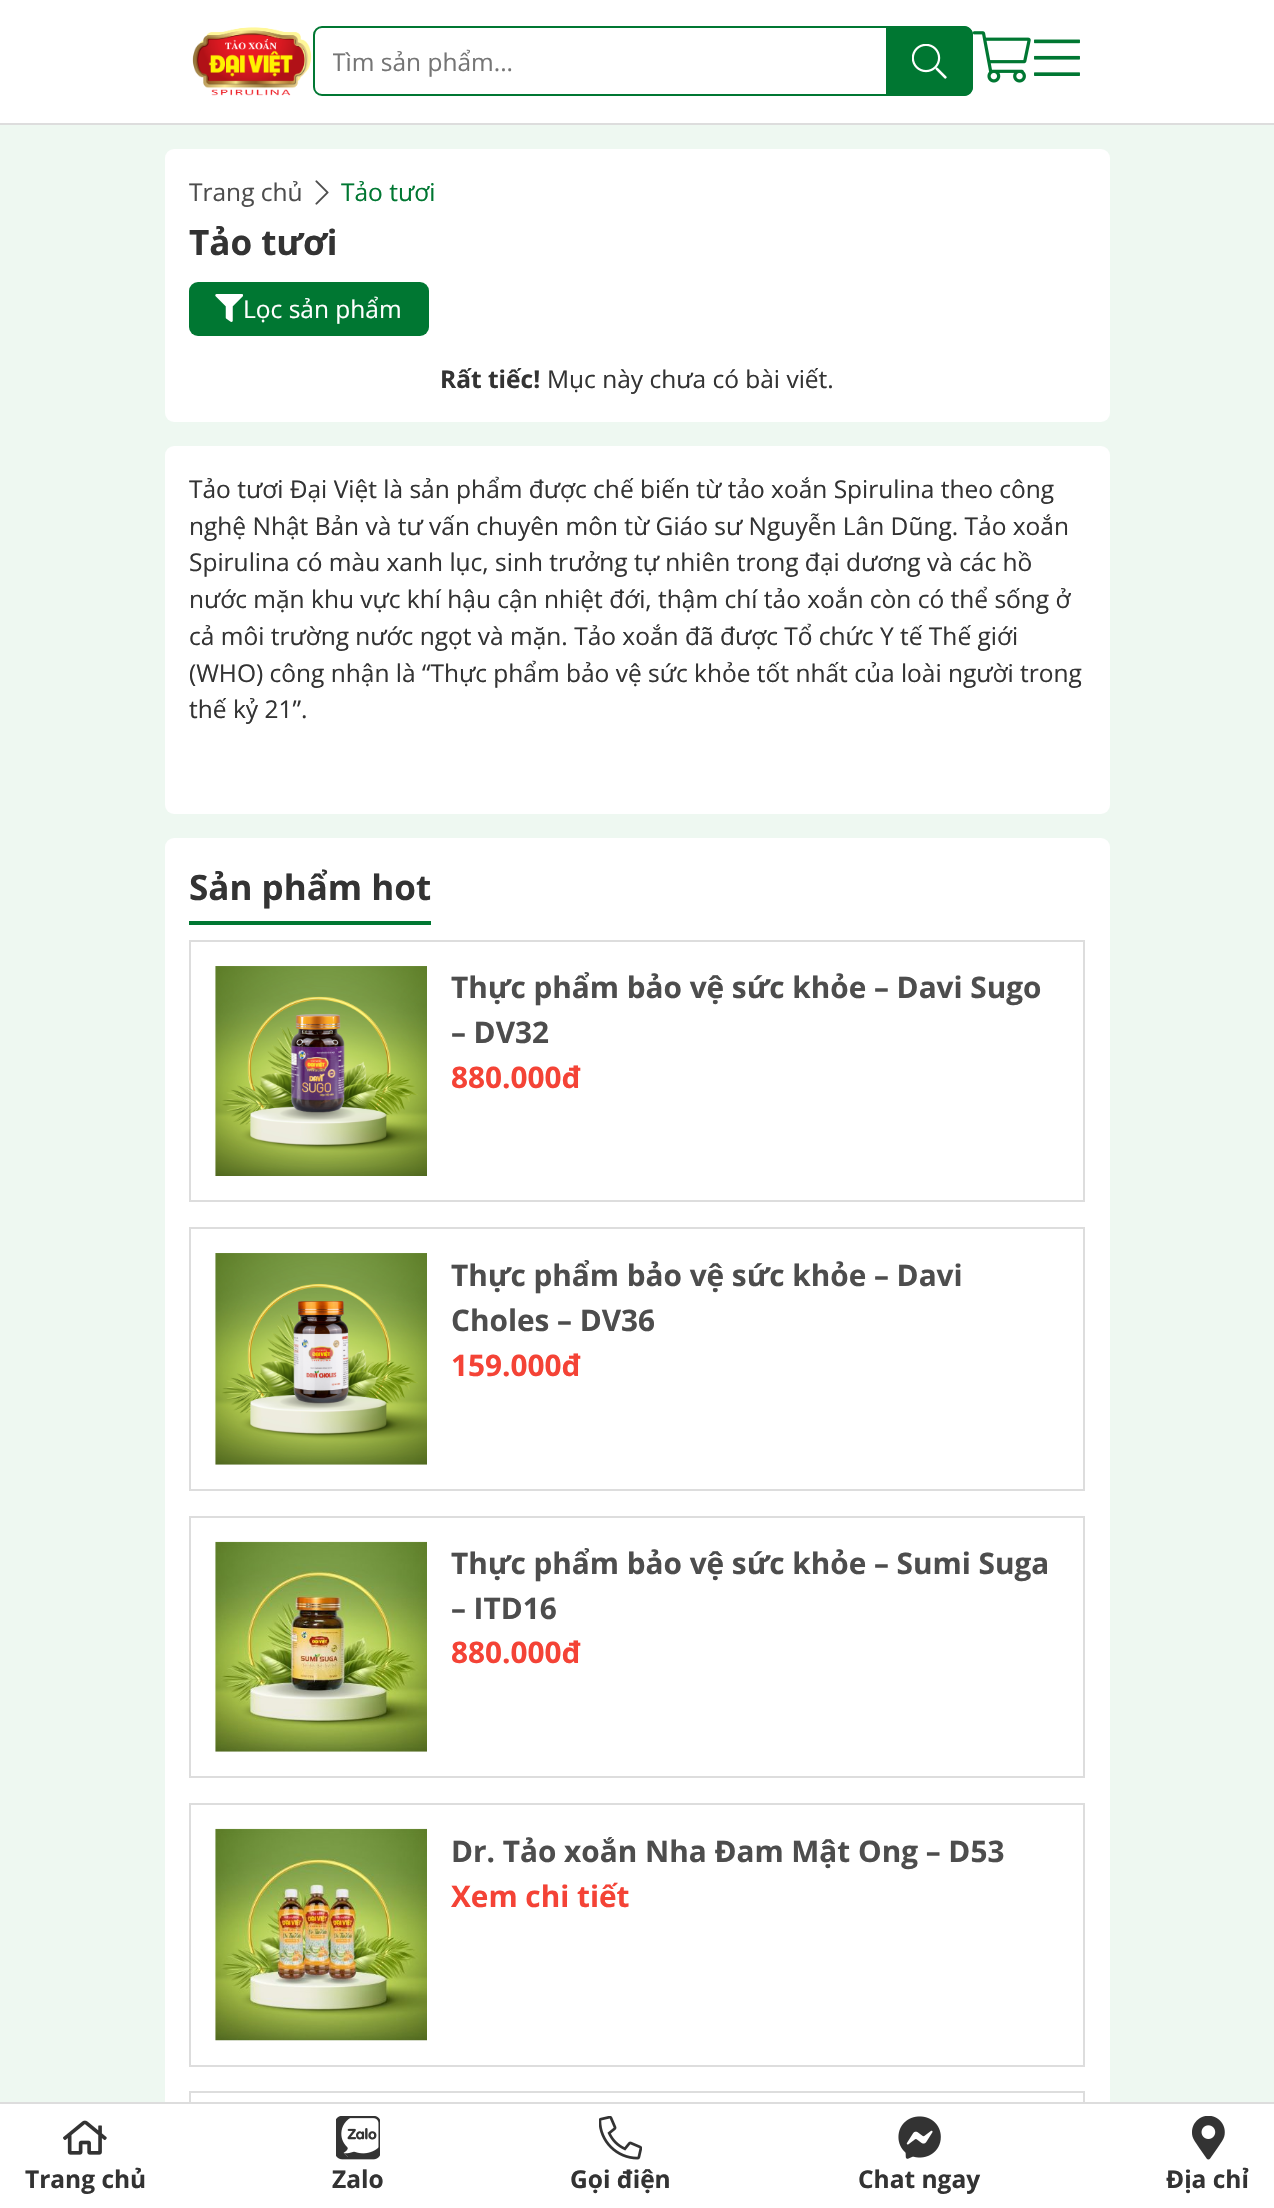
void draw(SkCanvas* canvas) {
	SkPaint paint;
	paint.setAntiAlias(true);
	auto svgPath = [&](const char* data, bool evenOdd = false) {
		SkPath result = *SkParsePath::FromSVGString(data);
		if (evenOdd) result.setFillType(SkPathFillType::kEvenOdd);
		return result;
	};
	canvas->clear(0xffeef8f1);
	paint.setColor(0xffffffff);
	canvas->drawRect(SkRect::MakeXYWH(0, 0, 1274, 123), paint);
	paint.setColor(0xffdddddd);
	canvas->drawRect(SkRect::MakeXYWH(0, 123, 1274, 2), paint);
	canvas->drawImageRect(SkImages::DeferredFromEncodedData(SkData::MakeFromFileName("img1.png")), SkRect::MakeXYWH(192, 27, 120, 69), SkSamplingOptions());
	paint.setStroke(true);
	paint.setStrokeWidth(2);
	paint.setColor(0xff007732);
	canvas->drawRoundRect(SkRect::MakeXYWH(314, 27, 658, 68), 8, 8, paint);
	canvas->save();
	canvas->clipRect(SkRect::MakeXYWH(333, 46, 621, 33));
	SkFont f1(fontMgr->matchFamilyStyle("Open Sans", SkFontStyle::Normal()), 24.5);
	f1.setSubpixel(true);
	paint.setStroke(false);
	paint.setColor(0xff757575);
	canvas->drawString("Tìm sản phẩm...", 332, 71, f1, paint);
	canvas->restore();
	paint.setColor(0xff007732);
	canvas->drawPath(svgPath("M886 26H964C969 26 973 30 973 35V87C973 92 969 96 964 96H886Z"), paint);
	canvas->drawImageRect(SkImages::DeferredFromEncodedData(SkData::MakeFromFileName("img2.png")), SkRect::MakeXYWH(912, 44, 35, 35), SkSamplingOptions());
	canvas->drawImageRect(SkImages::DeferredFromEncodedData(SkData::MakeFromFileName("img3.png")), SkRect::MakeXYWH(973, 31, 58, 52), SkSamplingOptions());
	canvas->drawImageRect(SkImages::DeferredFromEncodedData(SkData::MakeFromFileName("img4.png")), SkRect::MakeXYWH(1034, 39, 46, 37), SkSamplingOptions());
	paint.setColor(0xffffffff);
	canvas->drawRoundRect(SkRect::MakeXYWH(165, 149, 945, 273), 9, 9, paint);
	paint.setColor(0xff4d4d4d);
	canvas->drawString("Trang chủ", 189, 201, f1, paint);
	canvas->drawImageRect(SkImages::DeferredFromEncodedData(SkData::MakeFromFileName("img5.png")), SkRect::MakeXYWH(315, 180, 14, 25), SkSamplingOptions());
	paint.setColor(0xff007732);
	canvas->drawString("Tảo tươi", 341, 201, f1, paint);
	SkFont f2(fontMgr->matchFamilyStyle("Open Sans", SkFontStyle::Bold()), 35);
	f2.setSubpixel(true);
	paint.setColor(0xff333333);
	canvas->drawString("Tảo tươi", 189, 255, f2, paint);
	paint.setColor(0xff007732);
	canvas->drawRoundRect(SkRect::MakeXYWH(189, 282, 240, 54), 9, 9, paint);
	canvas->drawImageRect(SkImages::DeferredFromEncodedData(SkData::MakeFromFileName("img6.png")), SkRect::MakeXYWH(215, 294, 28, 28), SkSamplingOptions());
	paint.setColor(0xffffffff);
	canvas->drawString("Lọc sản phẩm", 243, 318, f1, paint);
	SkFont f3(fontMgr->matchFamilyStyle("Open Sans", SkFontStyle::Bold()), 24.5);
	f3.setSubpixel(true);
	paint.setColor(0xff333333);
	canvas->drawString("Rất tiếc!", 440, 388, f3, paint);
	canvas->drawString("Mục này chưa có bài viết.", 547, 388, f1, paint);
	paint.setColor(0xffffffff);
	canvas->drawRoundRect(SkRect::MakeXYWH(165, 446, 945, 368), 9, 9, paint);
	paint.setColor(0xff333333);
	canvas->drawString("Tảo tươi Đại Việt là sản phẩm được chế biến từ tảo xoắn Spirulina theo công", 189, 498, f1, paint);
	canvas->drawString("nghệ Nhật Bản và tư vấn chuyên môn từ Giáo sư Nguyễn Lân Dũng. Tảo xoắn", 189, 535, f1, paint);
	canvas->drawString("Spirulina có màu xanh lục, sinh trưởng tự nhiên trong đại dương và các hồ", 189, 571, f1, paint);
	canvas->drawString("nước mặn khu vực khí hậu cận nhiệt đới, thậm chí tảo xoắn còn có thể sống ở", 189, 608, f1, paint);
	canvas->drawString("cả môi trường nước ngọt và mặn. Tảo xoắn đã được Tổ chức Y tế Thế giới", 189, 645, f1, paint);
	canvas->drawString("(WHO) công nhận là “Thực phẩm bảo vệ sức khỏe tốt nhất của loài người trong", 189, 682, f1, paint);
	canvas->drawString("thế kỷ 21”.", 189, 718, f1, paint);
	paint.setColor(0xffffffff);
	canvas->drawRoundRect(SkRect::MakeXYWH(165, 838, 945, 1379), 9, 9, paint);
	paint.setColor(0xff333333);
	canvas->drawString("Sản phẩm hot", 189, 900, f2, paint);
	paint.setColor(0xff007732);
	canvas->drawRect(SkRect::MakeXYWH(189, 921, 242, 4), paint);
	paint.setStroke(true);
	paint.setColor(0xffdddddd);
	canvas->drawRect(SkRect::MakeXYWH(190, 941, 894, 260), paint);
	canvas->drawImageRect(SkImages::DeferredFromEncodedData(SkData::MakeFromFileName("img7.png")), SkRect::MakeXYWH(215, 966, 212, 210), SkSamplingOptions());
	SkFont f4(fontMgr->matchFamilyStyle("Open Sans", SkFontStyle::Bold()), 29.75);
	f4.setSubpixel(true);
	paint.setStroke(false);
	paint.setColor(0xff4d4d4d);
	canvas->drawString("Thực phẩm bảo vệ sức khỏe – Davi Sugo", 451, 998, f4, paint);
	canvas->drawString("– DV32", 451, 1043, f4, paint);
	paint.setColor(0xfff44336);
	canvas->drawString("880.000đ", 451, 1088, f4, paint);
	paint.setStroke(true);
	paint.setColor(0xffdddddd);
	canvas->drawRect(SkRect::MakeXYWH(190, 1228, 894, 262), paint);
	canvas->drawImageRect(SkImages::DeferredFromEncodedData(SkData::MakeFromFileName("img8.png")), SkRect::MakeXYWH(215, 1253, 212, 212), SkSamplingOptions());
	paint.setStroke(false);
	paint.setColor(0xff4d4d4d);
	canvas->drawString("Thực phẩm bảo vệ sức khỏe – Davi", 451, 1286, f4, paint);
	canvas->drawString("Choles – DV36", 451, 1331, f4, paint);
	paint.setColor(0xfff44336);
	canvas->drawString("159.000đ", 451, 1376, f4, paint);
	paint.setStroke(true);
	paint.setColor(0xffdddddd);
	canvas->drawRect(SkRect::MakeXYWH(190, 1517, 894, 260), paint);
	canvas->drawImageRect(SkImages::DeferredFromEncodedData(SkData::MakeFromFileName("img9.png")), SkRect::MakeXYWH(215, 1541, 212, 211), SkSamplingOptions());
	paint.setStroke(false);
	paint.setColor(0xff4d4d4d);
	canvas->drawString("Thực phẩm bảo vệ sức khỏe – Sumi Suga", 451, 1574, f4, paint);
	canvas->drawString("– ITD16", 451, 1619, f4, paint);
	paint.setColor(0xfff44336);
	canvas->drawString("880.000đ", 451, 1663, f4, paint);
	paint.setStroke(true);
	paint.setColor(0xffdddddd);
	canvas->drawRect(SkRect::MakeXYWH(190, 1804, 894, 262), paint);
	canvas->drawImageRect(SkImages::DeferredFromEncodedData(SkData::MakeFromFileName("img10.png")), SkRect::MakeXYWH(215, 1828, 212, 213), SkSamplingOptions());
	paint.setStroke(false);
	paint.setColor(0xff4d4d4d);
	canvas->drawString("Dr. Tảo xoắn Nha Đam Mật Ong – D53", 451, 1862, f4, paint);
	paint.setColor(0xfff44336);
	canvas->drawString("Xem chi tiết", 451, 1907, f4, paint);
	paint.setStroke(true);
	paint.setColor(0xffdddddd);
	canvas->drawRect(SkRect::MakeXYWH(190, 2092, 894, 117), paint);
	paint.setStroke(false);
	paint.setColor(0xffffffff);
	canvas->drawRect(SkRect::MakeXYWH(0, 2104, 1274, 104), paint);
	paint.setColor(0xffdddddd);
	canvas->drawRect(SkRect::MakeXYWH(0, 2102, 1274, 2), paint);
	canvas->drawImageRect(SkImages::DeferredFromEncodedData(SkData::MakeFromFileName("img11.png")), SkRect::MakeXYWH(63, 2120, 44, 35), SkSamplingOptions());
	paint.setColor(0xff333333);
	canvas->drawString("Trang chủ", 25, 2188, f3, paint);
	canvas->drawImageRect(SkImages::DeferredFromEncodedData(SkData::MakeFromFileName("img12.png")), SkRect::MakeXYWH(336, 2116, 44, 44), SkSamplingOptions());
	canvas->drawString("Zalo", 332, 2188, f3, paint);
	canvas->drawImageRect(SkImages::DeferredFromEncodedData(SkData::MakeFromFileName("img13.png")), SkRect::MakeXYWH(599, 2116, 43, 44), SkSamplingOptions());
	canvas->drawString("Gọi điện", 570, 2188, f3, paint);
	canvas->drawImageRect(SkImages::DeferredFromEncodedData(SkData::MakeFromFileName("img14.png")), SkRect::MakeXYWH(898, 2116, 43, 43), SkSamplingOptions());
	canvas->drawString("Chat ngay", 858, 2188, f3, paint);
	canvas->drawImageRect(SkImages::DeferredFromEncodedData(SkData::MakeFromFileName("img15.png")), SkRect::MakeXYWH(1192, 2116, 33, 44), SkSamplingOptions());
	canvas->drawString("Địa chỉ", 1166, 2188, f3, paint);
}
